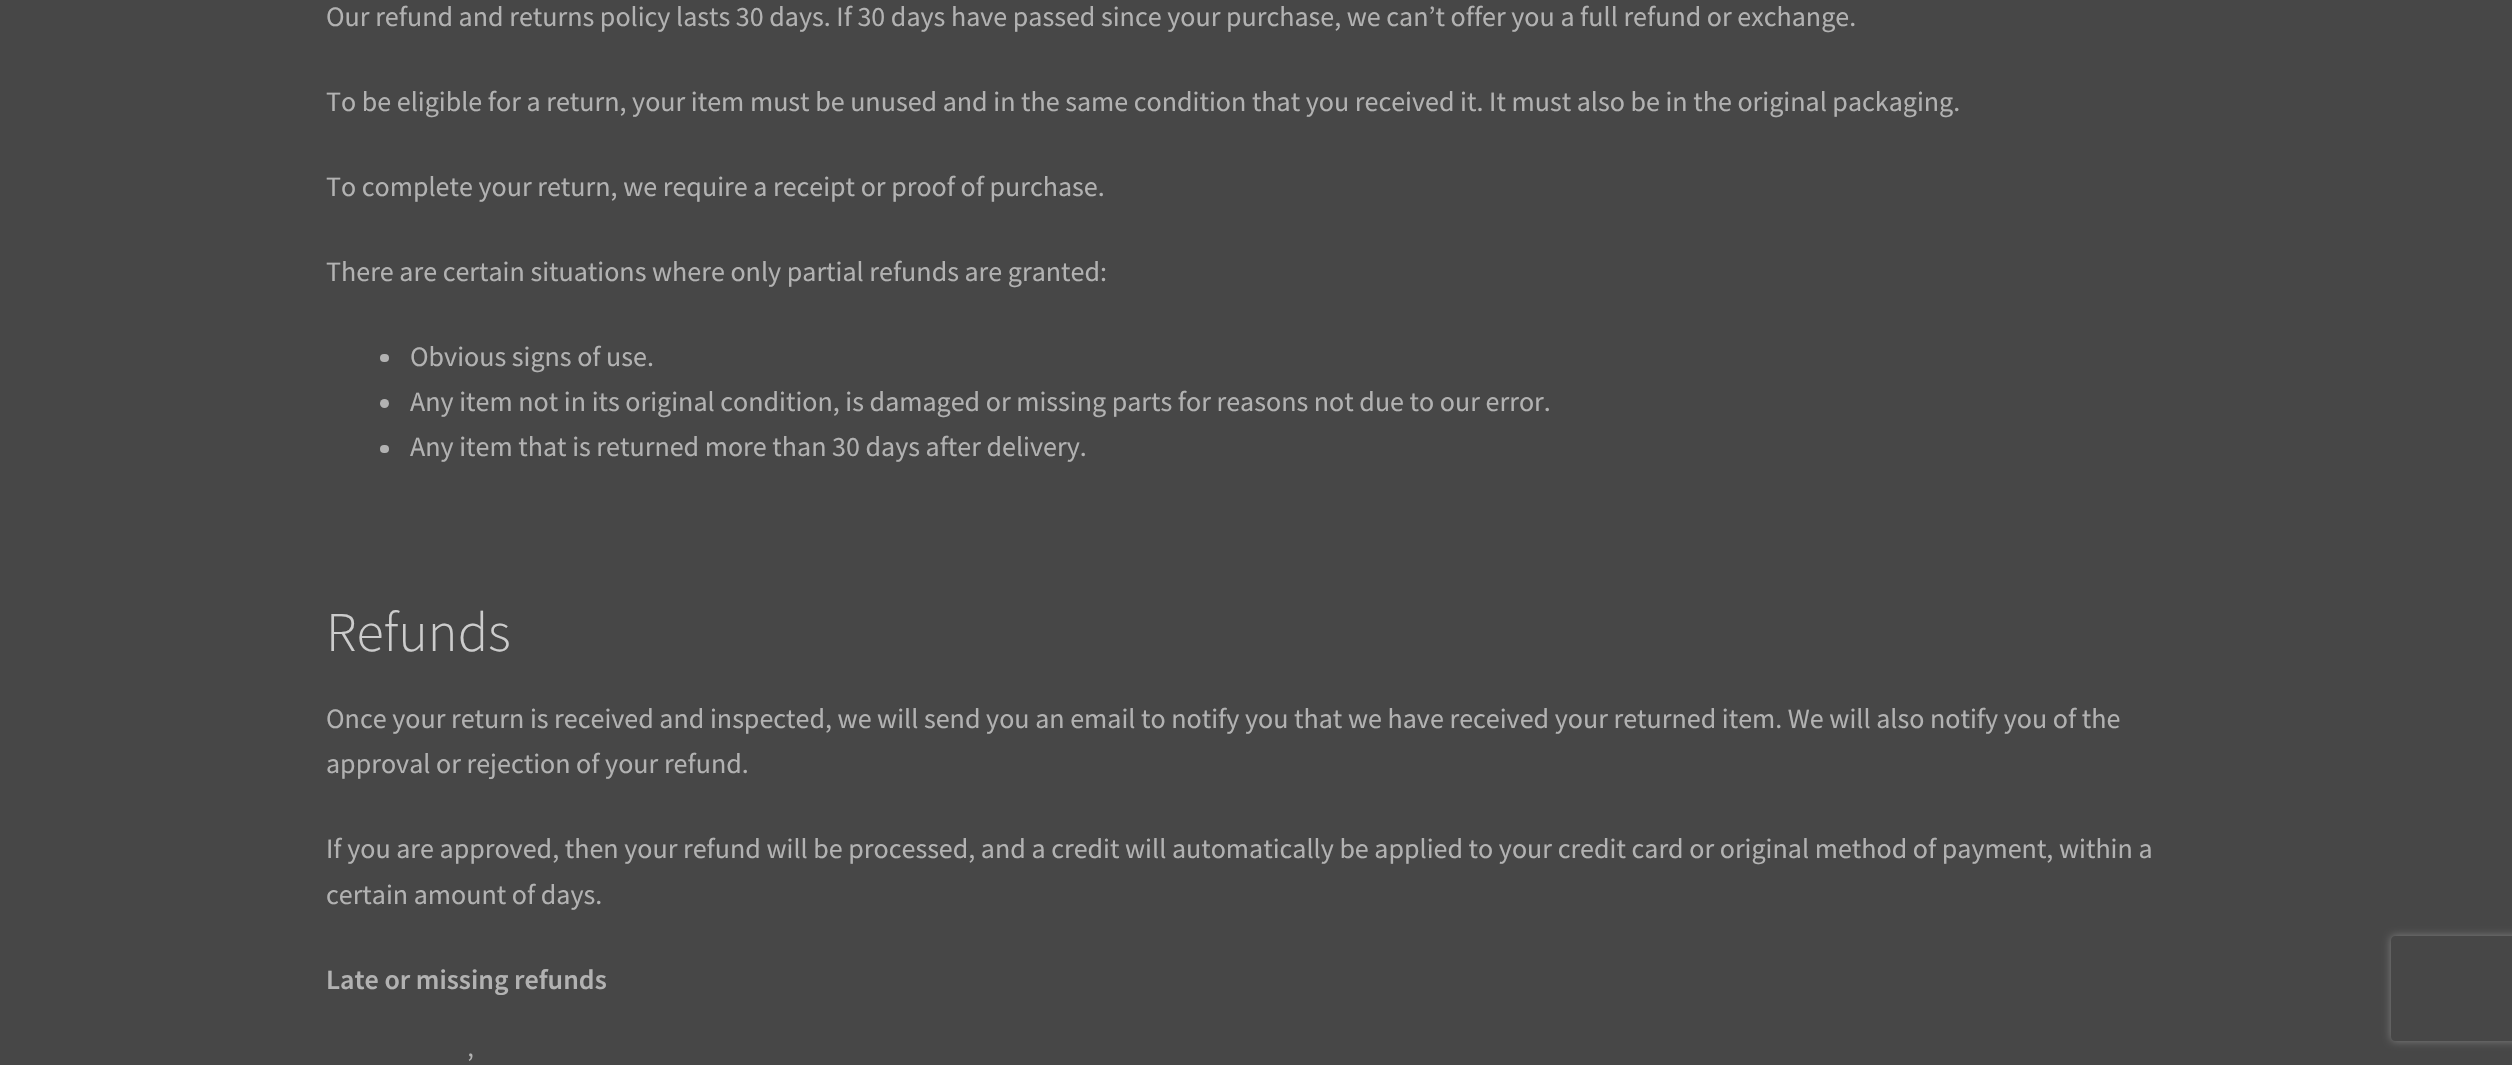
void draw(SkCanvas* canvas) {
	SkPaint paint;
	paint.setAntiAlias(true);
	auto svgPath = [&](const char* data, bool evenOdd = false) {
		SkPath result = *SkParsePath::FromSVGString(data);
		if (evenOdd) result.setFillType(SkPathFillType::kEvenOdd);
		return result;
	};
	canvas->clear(0xff474747);
	SkFont f1(fontMgr->matchFamilyStyle("Source Sans Pro", SkFontStyle::Normal()), 28);
	f1.setSubpixel(true);
	paint.setColor(0xffb2b2b2);
	canvas->drawString("Our refund and returns policy lasts 30 days. If 30 days have passed since your purchase, we can’t offer you a full refund or exchange.", 326, 26, f1, paint);
	canvas->drawString("To be eligible for a return, your item must be unused and in the same condition that you received it. It must also be in the original packaging.", 326, 111, f1, paint);
	canvas->drawString("To complete your return, we require a receipt or proof of purchase.", 326, 196, f1, paint);
	canvas->drawString("There are certain situations where only partial refunds are granted:", 326, 281, f1, paint);
	canvas->drawRoundRect(SkRect::MakeXYWH(380, 354, 9, 8), 4, 4, paint);
	canvas->drawString("Obvious signs of use.", 410, 366, f1, paint);
	canvas->drawCircle(384.5, 403.5, 4.5, paint);
	canvas->drawString("Any item not in its original condition, is damaged or missing parts for reasons not due to our error.", 410, 411, f1, paint);
	canvas->drawRoundRect(SkRect::MakeXYWH(380, 445, 9, 8), 4, 4, paint);
	canvas->drawString("Any item that is returned more than 30 days after delivery.", 410, 456, f1, paint);
	SkFont f2(fontMgr->matchFamilyStyle("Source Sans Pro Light", SkFontStyle(300, SkFontStyle::kNormal_Width, SkFontStyle::kUpright_Slant)), 56);
	f2.setSubpixel(true);
	paint.setColor(0xffcccccc);
	canvas->drawString("Refunds", 326, 651, f2, paint);
	paint.setColor(0xffb2b2b2);
	canvas->drawString("Once your return is received and inspected, we will send you an email to notify you that we have received your returned item. We will also notify you of the", 326, 728, f1, paint);
	canvas->drawString("approval or rejection of your refund.", 326, 773, f1, paint);
	canvas->drawString("If you are approved, then your refund will be processed, and a credit will automatically be applied to your credit card or original method of payment, within a", 326, 858, f1, paint);
	canvas->drawString("certain amount of days.", 326, 904, f1, paint);
	SkFont f3(fontMgr->matchFamilyStyle("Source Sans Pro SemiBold", SkFontStyle(600, SkFontStyle::kNormal_Width, SkFontStyle::kUpright_Slant)), 28);
	f3.setSubpixel(true);
	canvas->drawString("Late or missing refunds", 326, 989, f3, paint);
	canvas->drawString("’", 467, 1073, f1, paint);
	canvas->save();
	canvas->clipPath(svgPath("M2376 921H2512V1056H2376ZM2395 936H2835C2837 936 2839 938 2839 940V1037C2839 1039 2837 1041 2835 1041H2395C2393 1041 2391 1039 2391 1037V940C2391 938 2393 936 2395 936Z", true), true);
	paint.setColor(0xff808080);
	paint.setMaskFilter(SkMaskFilter::MakeBlur(kNormal_SkBlurStyle, 4.5));
	canvas->drawRoundRect(SkRect::MakeXYWH(2391, 936, 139, 105), 4, 4, paint);
	paint.setMaskFilter(nullptr);
	canvas->restore();
}
